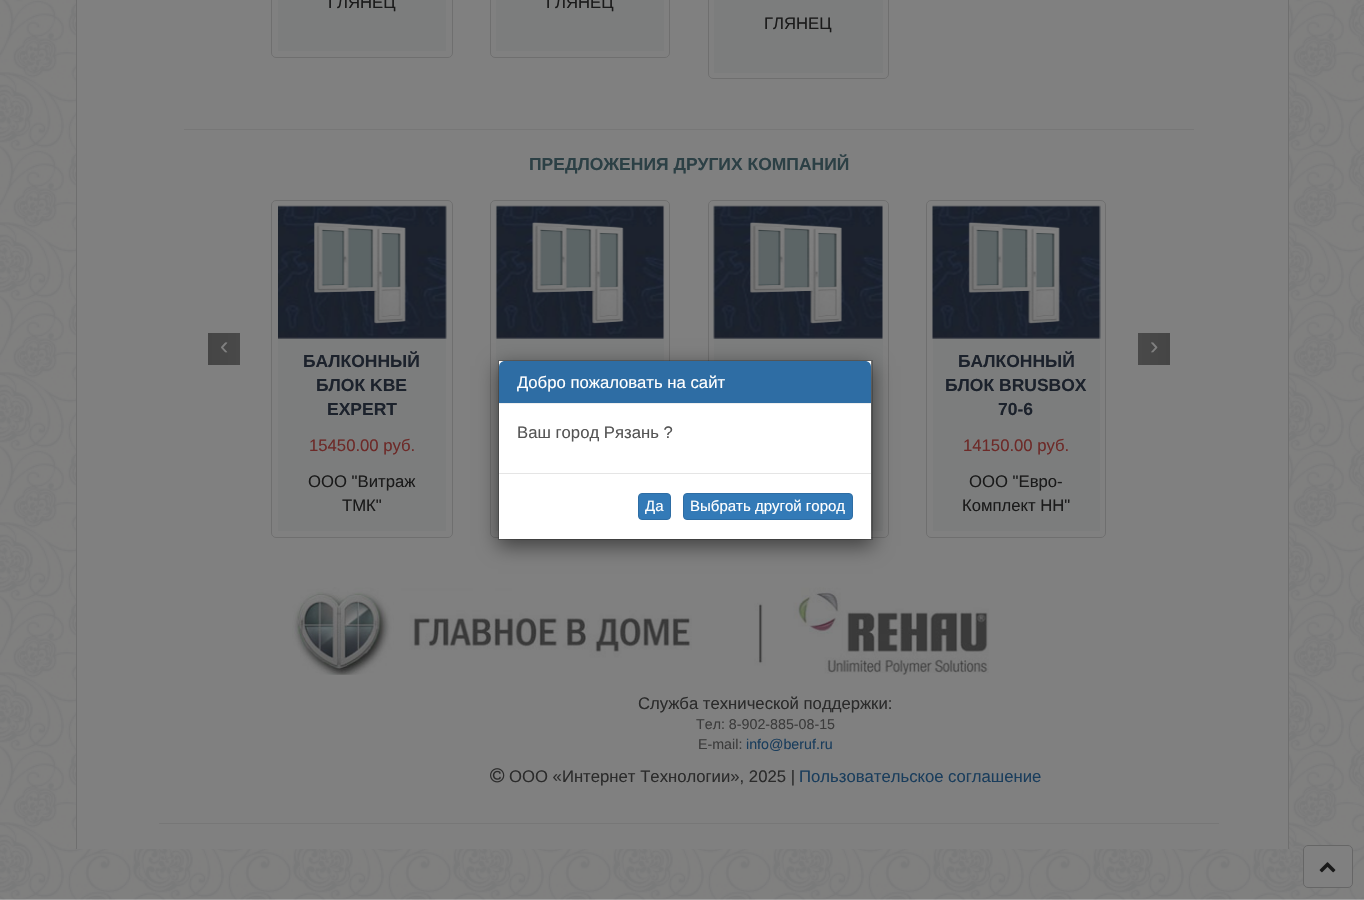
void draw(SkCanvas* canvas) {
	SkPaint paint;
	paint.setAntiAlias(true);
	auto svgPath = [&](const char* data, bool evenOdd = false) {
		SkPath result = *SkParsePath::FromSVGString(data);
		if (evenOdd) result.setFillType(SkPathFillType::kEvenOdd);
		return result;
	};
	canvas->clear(0xffffffff);
	canvas->drawImageRect(SkImages::DeferredFromEncodedData(SkData::MakeFromFileName("img1.png")), SkRect::MakeXYWH(0, 0, 1364, 900), SkSamplingOptions());
	paint.setColor(0xff808080);
	canvas->drawRect(SkRect::MakeXYWH(77, 0, 1211, 849), paint);
	paint.setColor(0xff6f6f6f);
	canvas->drawRect(SkRect::MakeXYWH(1288, 0, 1, 849), paint);
	canvas->drawRect(SkRect::MakeXYWH(76, 0, 1, 849), paint);
	paint.setStroke(true);
	paint.setStrokeWidth(1);
	canvas->drawRoundRect(SkRect::MakeXYWH(271.5, -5.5, 181, 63), 4.5, 4.5, paint);
	paint.setStroke(false);
	paint.setColor(0xff7c7d7d);
	canvas->drawRect(SkRect::MakeXYWH(278, 0, 168, 51), paint);
	SkFont f1(fontMgr->matchFamilyStyle("Liberation Sans", SkFontStyle::Normal()), 16.7);
	f1.setSubpixel(true);
	paint.setColor(0xff1a1a1a);
	canvas->drawString("ГЛЯНЕЦ", 328, 8, f1, paint);
	paint.setStroke(true);
	paint.setColor(0xff6f6f6f);
	canvas->drawRoundRect(SkRect::MakeXYWH(490.5, -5.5, 179, 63), 4.5, 4.5, paint);
	paint.setStroke(false);
	paint.setColor(0xff7c7d7d);
	canvas->drawRect(SkRect::MakeXYWH(496, 0, 168, 51), paint);
	paint.setColor(0xff1a1a1a);
	canvas->drawString("ГЛЯНЕЦ", 546, 8, f1, paint);
	paint.setStroke(true);
	paint.setColor(0xff6f6f6f);
	canvas->drawRoundRect(SkRect::MakeXYWH(708.5, -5.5, 180, 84), 4.5, 4.5, paint);
	paint.setStroke(false);
	paint.setColor(0xff7c7d7d);
	canvas->drawRect(SkRect::MakeXYWH(714, 0, 169, 73), paint);
	paint.setColor(0xff1a1a1a);
	canvas->drawString("ГЛЯНЕЦ", 764, 29, f1, paint);
	paint.setColor(0xff777777);
	canvas->drawRect(SkRect::MakeXYWH(184, 129, 1010, 1), paint);
	SkFont f2(fontMgr->matchFamilyStyle("Liberation Sans", SkFontStyle::Bold()), 17.5);
	f2.setSubpixel(true);
	paint.setColor(0xff2c4045);
	canvas->drawString("ПРЕДЛОЖЕНИЯ ДРУГИХ КОМПАНИЙ", 529, 170, f2, paint);
	{
		const SkColor colors[] = {0xff454545, 0xff494949};
		const float stops[] = {0, 1};
		const SkPoint ends[] = {{208, 349}, {240, 349}};
		paint.setShader(SkGradientShader::MakeLinear(ends, colors, stops, 2, SkTileMode::kClamp));
		paint.setAlpha(255);
	}
	canvas->drawRect(SkRect::MakeXYWH(208, 333, 32, 32), paint);
	SkFont f3(fontMgr->matchFamilyStyle("Liberation Sans", SkFontStyle::Normal()), 25);
	f3.setSubpixel(true);
	paint.setShader(nullptr);
	paint.setColor(0xff808080);
	canvas->drawString("‹", 220, 354, f3, paint);
	{
		const SkColor colors[] = {0xff494949, 0xff454545};
		const float stops[] = {0, 1};
		const SkPoint ends[] = {{1138, 349}, {1170, 349}};
		paint.setShader(SkGradientShader::MakeLinear(ends, colors, stops, 2, SkTileMode::kClamp));
		paint.setAlpha(255);
	}
	canvas->drawRect(SkRect::MakeXYWH(1138, 333, 32, 32), paint);
	paint.setShader(nullptr);
	paint.setColor(0xff808080);
	canvas->drawString("›", 1150, 354, f3, paint);
	paint.setStroke(true);
	paint.setColor(0xff6f6f6f);
	canvas->drawRoundRect(SkRect::MakeXYWH(271.5, 200.5, 181, 337), 4.5, 4.5, paint);
	canvas->drawImageRect(SkImages::DeferredFromEncodedData(SkData::MakeFromFileName("img2.png")), SkRect::MakeXYWH(278, 205, 169, 134), SkSamplingOptions());
	canvas->drawImageRect(SkImages::DeferredFromEncodedData(SkData::MakeFromFileName("img3.png")), SkRect::MakeXYWH(314, 222, 92, 101), SkSamplingOptions());
	paint.setStroke(false);
	paint.setColor(0xff7c7d7d);
	canvas->drawRect(SkRect::MakeXYWH(278, 339, 168, 192), paint);
	paint.setColor(0xff1c222c);
	canvas->drawString("БАЛКОННЫЙ", 303, 367, f2, paint);
	canvas->drawString("БЛОК KBE", 316, 391, f2, paint);
	canvas->drawString("EXPERT", 327, 415, f2, paint);
	paint.setColor(0xff6d2a28);
	canvas->drawString("15450.00 руб.", 309, 451, f1, paint);
	paint.setColor(0xff1a1a1a);
	canvas->drawString("ООО \"Витраж", 308, 487, f1, paint);
	canvas->drawString("ТМК\"", 342, 511, f1, paint);
	paint.setStroke(true);
	paint.setColor(0xff6f6f6f);
	canvas->drawRoundRect(SkRect::MakeXYWH(490.5, 200.5, 179, 337), 4.5, 4.5, paint);
	canvas->drawImageRect(SkImages::DeferredFromEncodedData(SkData::MakeFromFileName("img4.png")), SkRect::MakeXYWH(495, 205, 170, 134), SkSamplingOptions());
	canvas->drawImageRect(SkImages::DeferredFromEncodedData(SkData::MakeFromFileName("img5.png")), SkRect::MakeXYWH(532, 222, 92, 101), SkSamplingOptions());
	paint.setStroke(false);
	paint.setColor(0xff7c7d7d);
	canvas->drawRect(SkRect::MakeXYWH(496, 339, 168, 192), paint);
	paint.setStroke(true);
	paint.setColor(0xff6f6f6f);
	canvas->drawRoundRect(SkRect::MakeXYWH(708.5, 200.5, 180, 337), 4.5, 4.5, paint);
	canvas->drawImageRect(SkImages::DeferredFromEncodedData(SkData::MakeFromFileName("img6.png")), SkRect::MakeXYWH(713, 205, 170, 134), SkSamplingOptions());
	canvas->drawImageRect(SkImages::DeferredFromEncodedData(SkData::MakeFromFileName("img7.png")), SkRect::MakeXYWH(750, 222, 92, 101), SkSamplingOptions());
	paint.setStroke(false);
	paint.setColor(0xff7c7d7d);
	canvas->drawRect(SkRect::MakeXYWH(714, 339, 169, 192), paint);
	paint.setStroke(true);
	paint.setColor(0xff6f6f6f);
	canvas->drawRoundRect(SkRect::MakeXYWH(926.5, 200.5, 179, 337), 4.5, 4.5, paint);
	canvas->drawImageRect(SkImages::DeferredFromEncodedData(SkData::MakeFromFileName("img8.png")), SkRect::MakeXYWH(932, 205, 169, 134), SkSamplingOptions());
	canvas->drawImageRect(SkImages::DeferredFromEncodedData(SkData::MakeFromFileName("img9.png")), SkRect::MakeXYWH(968, 222, 92, 101), SkSamplingOptions());
	paint.setStroke(false);
	paint.setColor(0xff7c7d7d);
	canvas->drawRect(SkRect::MakeXYWH(933, 339, 167, 192), paint);
	paint.setColor(0xff1c222c);
	canvas->drawString("БАЛКОННЫЙ", 958, 367, f2, paint);
	canvas->drawString("БЛОК BRUSBOX", 945, 391, f2, paint);
	canvas->drawString("70-6", 998, 415, f2, paint);
	paint.setColor(0xff6d2a28);
	canvas->drawString("14150.00 руб.", 963, 451, f1, paint);
	paint.setColor(0xff1a1a1a);
	canvas->drawString("ООО \"Евро-", 969, 487, f1, paint);
	canvas->drawString("Комплект НН\"", 962, 511, f1, paint);
	paint.setColor(0x80000000);
	paint.setMaskFilter(SkMaskFilter::MakeBlur(kNormal_SkBlurStyle, 9.5));
	canvas->drawRect(SkRect::MakeXYWH(498, 366, 375, 180), paint);
	paint.setMaskFilter(nullptr);
	paint.setColor(0xffffffff);
	canvas->drawRect(SkRect::MakeXYWH(499, 361, 372, 178), paint);
	paint.setStroke(true);
	paint.setColor(0x33000000);
	canvas->drawRect(SkRect::MakeXYWH(498.5, 360.5, 374, 179), paint);
	paint.setStroke(false);
	paint.setColor(0xff2e6da4);
	canvas->drawPath(svgPath("M505 361H865C868.5 361 871 363.5 871 367V404H499V367C499 363.5 501.5 361 505 361Z"), paint);
	paint.setColor(0xffeeeeee);
	canvas->drawRect(SkRect::MakeXYWH(499, 403, 372, 1), paint);
	paint.setColor(0xffffffff);
	canvas->drawString("Добро пожаловать на сайт", 517, 388, f1, paint);
	paint.setColor(0xff555555);
	canvas->drawString("Ваш город Рязань ?", 517, 438, f1, paint);
	paint.setColor(0xffe5e5e5);
	canvas->drawRect(SkRect::MakeXYWH(499, 473, 372, 1), paint);
	paint.setColor(0xff337ab7);
	canvas->drawRoundRect(SkRect::MakeXYWH(638.5, 493.5, 32, 26), 3.5, 3.5, paint);
	paint.setStroke(true);
	paint.setColor(0xff2e6da4);
	canvas->drawRoundRect(SkRect::MakeXYWH(638.5, 493.5, 32, 26), 3.5, 3.5, paint);
	SkFont f4(fontMgr->matchFamilyStyle("Liberation Sans", SkFontStyle::Normal()), 15);
	f4.setSubpixel(true);
	paint.setStroke(false);
	paint.setColor(0xffffffff);
	canvas->drawString("Да", 645, 511, f4, paint);
	paint.setColor(0xff337ab7);
	canvas->drawRoundRect(SkRect::MakeXYWH(683.5, 493.5, 169, 26), 3.5, 3.5, paint);
	paint.setStroke(true);
	paint.setColor(0xff2e6da4);
	canvas->drawRoundRect(SkRect::MakeXYWH(683.5, 493.5, 169, 26), 3.5, 3.5, paint);
	paint.setStroke(false);
	paint.setColor(0xffffffff);
	canvas->drawString("Выбрать другой город", 690, 511, f4, paint);
	canvas->drawImageRect(SkImages::DeferredFromEncodedData(SkData::MakeFromFileName("img10.png")), SkRect::MakeXYWH(292, 587, 697, 88), SkSamplingOptions());
	paint.setColor(0xff2b2b2b);
	canvas->drawString("Служба технической поддержки:", 638, 709, f1, paint);
	SkFont f5(fontMgr->matchFamilyStyle("Liberation Sans", SkFontStyle::Normal()), 14.25);
	f5.setSubpixel(true);
	paint.setColor(0xff3c3c3c);
	canvas->drawString("Тел: 8-902-885-08-15", 696, 729, f5, paint);
	canvas->drawString("E-mail:", 698, 749, f5, paint);
	paint.setColor(0xff1a3d5c);
	canvas->drawString("info@beruf.ru", 746, 749, f5, paint);
	canvas->drawImageRect(SkImages::DeferredFromEncodedData(SkData::MakeFromFileName("img11.png")), SkRect::MakeXYWH(490, 768, 15, 15), SkSamplingOptions());
	paint.setColor(0xff2b2b2b);
	canvas->drawString("ООО «Интернет Технологии», 2025 |", 509, 782, f1, paint);
	paint.setColor(0xff1a3d5c);
	canvas->drawString("Пользовательское соглашение", 799, 782, f1, paint);
	paint.setColor(0xff777777);
	canvas->drawRect(SkRect::MakeXYWH(159, 823, 1060, 1), paint);
	paint.setColor(0xff808080);
	canvas->drawRoundRect(SkRect::MakeXYWH(1303.5, 845.5, 49, 42), 4.5, 4.5, paint);
	paint.setStroke(true);
	paint.setColor(0xff666666);
	canvas->drawRoundRect(SkRect::MakeXYWH(1303.5, 845.5, 49, 42), 4.5, 4.5, paint);
	canvas->drawImageRect(SkImages::DeferredFromEncodedData(SkData::MakeFromFileName("img12.png")), SkRect::MakeXYWH(1319, 862, 17, 11), SkSamplingOptions());
}
